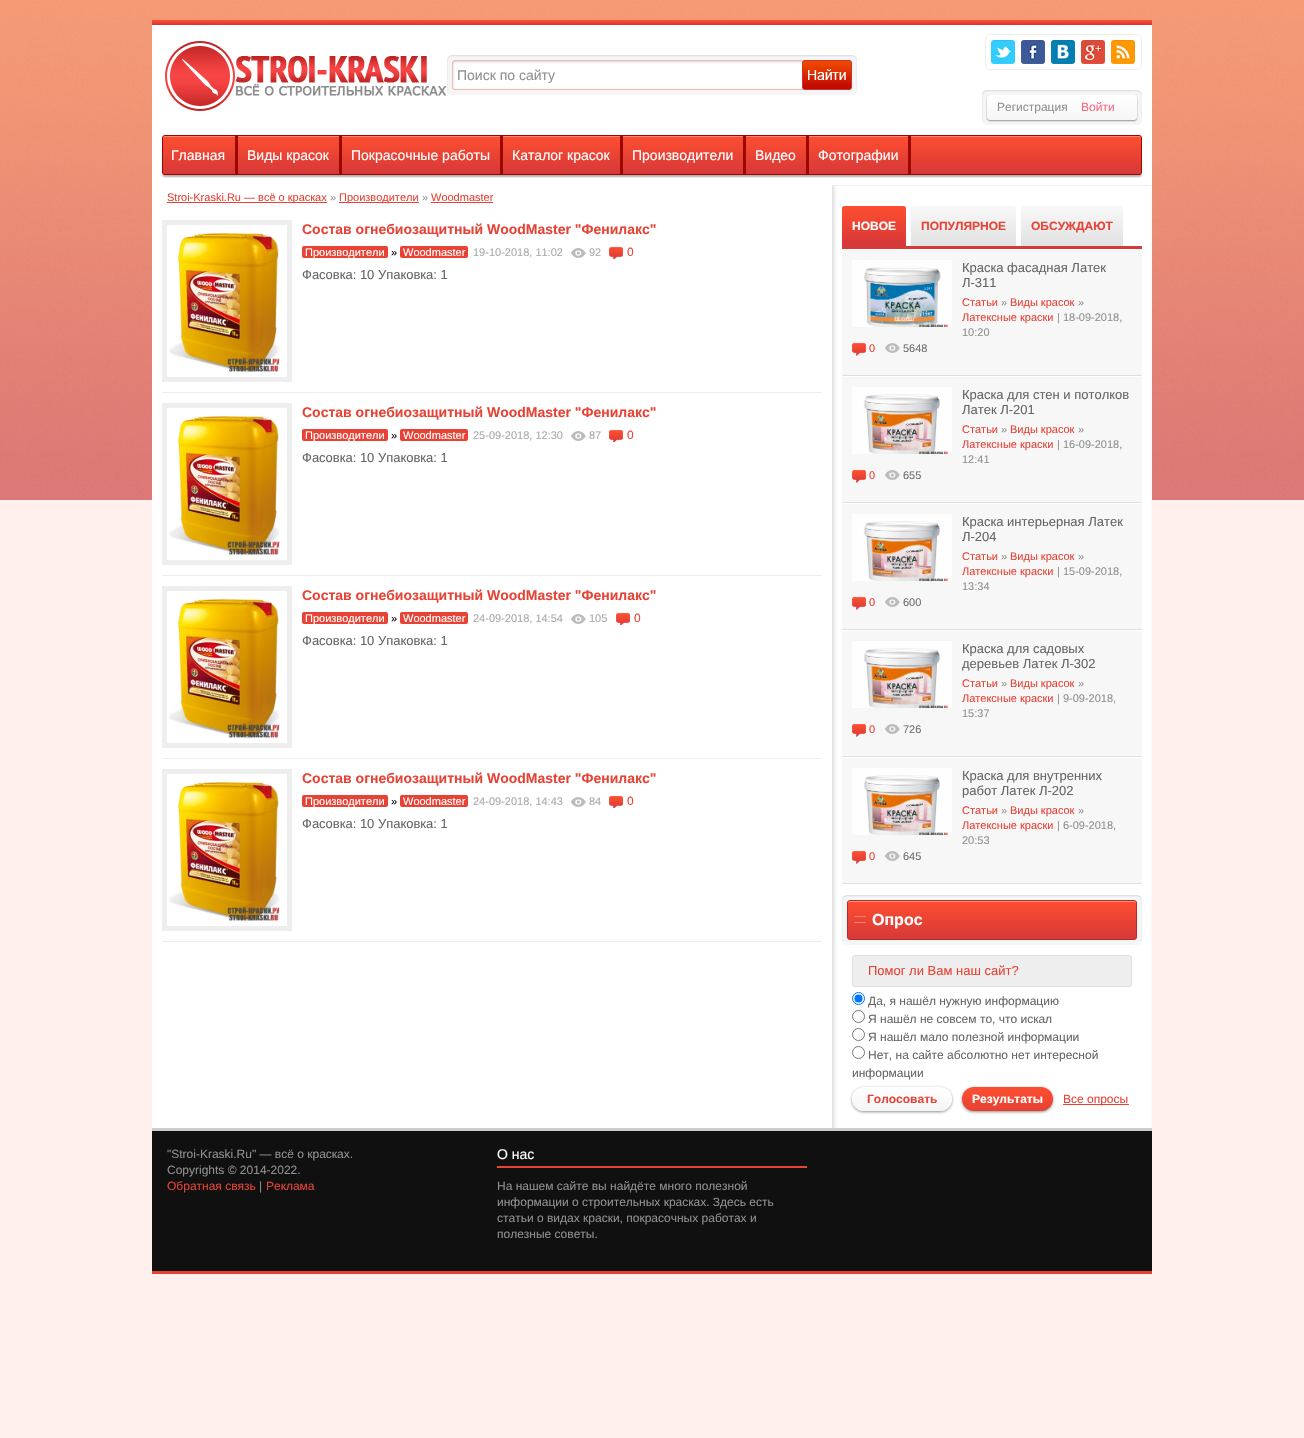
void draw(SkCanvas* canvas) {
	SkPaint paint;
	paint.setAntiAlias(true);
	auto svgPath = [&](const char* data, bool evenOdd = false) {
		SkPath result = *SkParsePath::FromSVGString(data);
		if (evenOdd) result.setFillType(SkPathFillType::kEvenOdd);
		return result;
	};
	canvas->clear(0xffffefed);
	canvas->drawImageRect(SkImages::DeferredFromEncodedData(SkData::MakeFromFileName("img1.png")), SkRect::MakeXYWH(0, 0, 1304, 500), SkSamplingOptions());
	paint.setColor(0xffffffff);
	canvas->drawRect(SkRect::MakeXYWH(152, 25, 1000, 1103), paint);
	canvas->drawImageRect(SkImages::DeferredFromEncodedData(SkData::MakeFromFileName("img2.png")), SkRect::MakeXYWH(152, 20, 1000, 5), SkSamplingOptions());
	canvas->drawImageRect(SkImages::DeferredFromEncodedData(SkData::MakeFromFileName("img3.png")), SkRect::MakeXYWH(165, 41, 281, 70), SkSamplingOptions());
	canvas->drawImageRect(SkImages::DeferredFromEncodedData(SkData::MakeFromFileName("img4.png")), SkRect::MakeXYWH(447, 55, 410, 40), SkSamplingOptions());
	SkFont f1(fontMgr->matchFamilyStyle("Liberation Sans", SkFontStyle::Normal()), 14);
	f1.setSubpixel(true);
	paint.setColor(0xff909090);
	canvas->drawString("Поиск по сайту", 457, 80, f1, paint);
	canvas->drawImageRect(SkImages::DeferredFromEncodedData(SkData::MakeFromFileName("img5.png")), SkRect::MakeXYWH(802, 60, 50, 30), SkSamplingOptions());
	paint.setStroke(true);
	paint.setStrokeWidth(1);
	paint.setColor(0xffeeeeee);
	canvas->drawRoundRect(SkRect::MakeXYWH(985.5, 34.5, 156, 35), 4.5, 4.5, paint);
	canvas->drawImageRect(SkImages::DeferredFromEncodedData(SkData::MakeFromFileName("img6.png")), SkRect::MakeXYWH(991, 40, 24, 24), SkSamplingOptions());
	canvas->drawImageRect(SkImages::DeferredFromEncodedData(SkData::MakeFromFileName("img7.png")), SkRect::MakeXYWH(1021, 40, 24, 24), SkSamplingOptions());
	canvas->drawImageRect(SkImages::DeferredFromEncodedData(SkData::MakeFromFileName("img8.png")), SkRect::MakeXYWH(1051, 40, 24, 24), SkSamplingOptions());
	canvas->drawImageRect(SkImages::DeferredFromEncodedData(SkData::MakeFromFileName("img9.png")), SkRect::MakeXYWH(1081, 40, 24, 24), SkSamplingOptions());
	canvas->drawImageRect(SkImages::DeferredFromEncodedData(SkData::MakeFromFileName("img10.png")), SkRect::MakeXYWH(1111, 40, 24, 24), SkSamplingOptions());
	canvas->drawImageRect(SkImages::DeferredFromEncodedData(SkData::MakeFromFileName("img11.png")), SkRect::MakeXYWH(982, 90, 160, 35), SkSamplingOptions());
	SkFont f2(fontMgr->matchFamilyStyle("Liberation Sans", SkFontStyle::Normal()), 12);
	f2.setSubpixel(true);
	paint.setStroke(false);
	paint.setColor(0xff909090);
	canvas->drawString("Регистрация", 997, 111, f2, paint);
	paint.setColor(0xfff96a82);
	canvas->drawString("Войти", 1081, 111, f2, paint);
	canvas->drawImageRect(SkImages::DeferredFromEncodedData(SkData::MakeFromFileName("img12.png")), SkRect::MakeXYWH(162, 135, 980, 43), SkSamplingOptions());
	paint.setColor(0xff9b0800);
	canvas->drawRect(SkRect::MakeXYWH(235, 135, 3, 40), paint);
	paint.setColor(0xffffffff);
	canvas->drawString("Главная", 171, 160, f1, paint);
	paint.setColor(0xff9b0800);
	canvas->drawRect(SkRect::MakeXYWH(339, 135, 3, 40), paint);
	paint.setColor(0xffffffff);
	canvas->drawString("Виды красок", 247, 160, f1, paint);
	paint.setColor(0xff9b0800);
	canvas->drawRect(SkRect::MakeXYWH(500, 135, 3, 40), paint);
	paint.setColor(0xffffffff);
	canvas->drawString("Покрасочные работы", 351, 160, f1, paint);
	paint.setColor(0xff9b0800);
	canvas->drawRect(SkRect::MakeXYWH(620, 135, 3, 40), paint);
	paint.setColor(0xffffffff);
	canvas->drawString("Каталог красок", 512, 160, f1, paint);
	paint.setColor(0xff9b0800);
	canvas->drawRect(SkRect::MakeXYWH(743, 135, 3, 40), paint);
	paint.setColor(0xffffffff);
	canvas->drawString("Производители", 632, 160, f1, paint);
	paint.setColor(0xff9b0800);
	canvas->drawRect(SkRect::MakeXYWH(806, 135, 3, 40), paint);
	paint.setColor(0xffffffff);
	canvas->drawString("Видео", 755, 160, f1, paint);
	paint.setColor(0xff9b0800);
	canvas->drawRect(SkRect::MakeXYWH(908, 135, 3, 40), paint);
	paint.setColor(0xffffffff);
	canvas->drawString("Фотографии", 818, 160, f1, paint);
	canvas->drawImageRect(SkImages::DeferredFromEncodedData(SkData::MakeFromFileName("img13.png")), SkRect::MakeXYWH(832, 186, 320, 942), SkSamplingOptions());
	paint.setColor(0xffe84235);
	canvas->drawRect(SkRect::MakeXYWH(167, 202, 160, 1), paint);
	SkFont f3(fontMgr->matchFamilyStyle("Liberation Sans", SkFontStyle::Normal()), 11);
	f3.setSubpixel(true);
	canvas->drawString("Stroi-Kraski.Ru — всё о красках", 167, 201, f3, paint);
	paint.setColor(0xff909090);
	canvas->drawString("»", 330, 201, f3, paint);
	paint.setColor(0xffe84235);
	canvas->drawRect(SkRect::MakeXYWH(339, 202, 80, 1), paint);
	canvas->drawString("Производители", 339, 201, f3, paint);
	paint.setColor(0xff909090);
	canvas->drawString("»", 422, 201, f3, paint);
	paint.setColor(0xffe84235);
	canvas->drawString("Woodmaster", 431, 201, f3, paint);
	canvas->drawRect(SkRect::MakeXYWH(431, 202, 62, 1), paint);
	paint.setColor(0xffeeeeee);
	canvas->drawRect(SkRect::MakeXYWH(162, 392, 660, 1), paint);
	paint.setStroke(true);
	paint.setStrokeWidth(5);
	canvas->drawRect(SkRect::MakeXYWH(164.5, 222.5, 125, 157), paint);
	canvas->drawImageRect(SkImages::DeferredFromEncodedData(SkData::MakeFromFileName("img14.png")), SkRect::MakeXYWH(169, 232, 111, 141), SkSamplingOptions());
	SkFont f4(fontMgr->matchFamilyStyle("Liberation Sans", SkFontStyle::Bold()), 14);
	f4.setSubpixel(true);
	paint.setStroke(false);
	paint.setColor(0xffe84235);
	canvas->drawString("Состав огнебиозащитный WoodMaster \"Фенилакс\"", 302, 234, f4, paint);
	canvas->drawRoundRect(SkRect::MakeXYWH(302, 246, 86, 12), 2, 2, paint);
	paint.setColor(0xffffffff);
	canvas->drawString("Производители", 305, 256, f3, paint);
	paint.setColor(0xff000000);
	canvas->drawString("»", 391, 256, f3, paint);
	paint.setColor(0xffe84235);
	canvas->drawRoundRect(SkRect::MakeXYWH(400, 246, 68, 12), 2, 2, paint);
	paint.setColor(0xffffffff);
	canvas->drawString("Woodmaster", 403, 256, f3, paint);
	paint.setColor(0xffaaaaaa);
	canvas->drawString("19-10-2018, 11:02", 473, 256, f3, paint);
	canvas->drawImageRect(SkImages::DeferredFromEncodedData(SkData::MakeFromFileName("img15.png")), SkRect::MakeXYWH(571, 248, 15, 10), SkSamplingOptions());
	canvas->drawString("92", 589, 256, f3, paint);
	canvas->drawImageRect(SkImages::DeferredFromEncodedData(SkData::MakeFromFileName("img16.png")), SkRect::MakeXYWH(609, 247, 14, 12), SkSamplingOptions());
	paint.setColor(0xffe84235);
	canvas->drawString("0", 627, 256, f2, paint);
	SkFont f5(fontMgr->matchFamilyStyle("Liberation Sans", SkFontStyle::Normal()), 13);
	f5.setSubpixel(true);
	paint.setColor(0xff666666);
	canvas->drawString("Фасовка: 10 Упаковка: 1", 302, 279, f5, paint);
	paint.setColor(0xffeeeeee);
	canvas->drawRect(SkRect::MakeXYWH(162, 575, 660, 1), paint);
	paint.setStroke(true);
	canvas->drawRect(SkRect::MakeXYWH(164.5, 405.5, 125, 157), paint);
	canvas->drawImageRect(SkImages::DeferredFromEncodedData(SkData::MakeFromFileName("img14.png")), SkRect::MakeXYWH(169, 415, 111, 141), SkSamplingOptions());
	paint.setStroke(false);
	paint.setColor(0xffe84235);
	canvas->drawString("Состав огнебиозащитный WoodMaster \"Фенилакс\"", 302, 417, f4, paint);
	canvas->drawRoundRect(SkRect::MakeXYWH(302, 429, 86, 12), 2, 2, paint);
	paint.setColor(0xffffffff);
	canvas->drawString("Производители", 305, 439, f3, paint);
	paint.setColor(0xff000000);
	canvas->drawString("»", 391, 439, f3, paint);
	paint.setColor(0xffe84235);
	canvas->drawRoundRect(SkRect::MakeXYWH(400, 429, 68, 12), 2, 2, paint);
	paint.setColor(0xffffffff);
	canvas->drawString("Woodmaster", 403, 439, f3, paint);
	paint.setColor(0xffaaaaaa);
	canvas->drawString("25-09-2018, 12:30", 473, 439, f3, paint);
	canvas->drawImageRect(SkImages::DeferredFromEncodedData(SkData::MakeFromFileName("img15.png")), SkRect::MakeXYWH(571, 431, 15, 10), SkSamplingOptions());
	canvas->drawString("87", 589, 439, f3, paint);
	canvas->drawImageRect(SkImages::DeferredFromEncodedData(SkData::MakeFromFileName("img16.png")), SkRect::MakeXYWH(609, 430, 14, 12), SkSamplingOptions());
	paint.setColor(0xffe84235);
	canvas->drawString("0", 627, 439, f2, paint);
	paint.setColor(0xff666666);
	canvas->drawString("Фасовка: 10 Упаковка: 1", 302, 462, f5, paint);
	paint.setColor(0xffeeeeee);
	canvas->drawRect(SkRect::MakeXYWH(162, 758, 660, 1), paint);
	paint.setStroke(true);
	canvas->drawRect(SkRect::MakeXYWH(164.5, 588.5, 125, 157), paint);
	canvas->drawImageRect(SkImages::DeferredFromEncodedData(SkData::MakeFromFileName("img14.png")), SkRect::MakeXYWH(169, 598, 111, 141), SkSamplingOptions());
	paint.setStroke(false);
	paint.setColor(0xffe84235);
	canvas->drawString("Состав огнебиозащитный WoodMaster \"Фенилакс\"", 302, 600, f4, paint);
	canvas->drawRoundRect(SkRect::MakeXYWH(302, 612, 86, 12), 2, 2, paint);
	paint.setColor(0xffffffff);
	canvas->drawString("Производители", 305, 622, f3, paint);
	paint.setColor(0xff000000);
	canvas->drawString("»", 391, 622, f3, paint);
	paint.setColor(0xffe84235);
	canvas->drawRoundRect(SkRect::MakeXYWH(400, 612, 68, 12), 2, 2, paint);
	paint.setColor(0xffffffff);
	canvas->drawString("Woodmaster", 403, 622, f3, paint);
	paint.setColor(0xffaaaaaa);
	canvas->drawString("24-09-2018, 14:54", 473, 622, f3, paint);
	canvas->drawImageRect(SkImages::DeferredFromEncodedData(SkData::MakeFromFileName("img15.png")), SkRect::MakeXYWH(571, 614, 15, 10), SkSamplingOptions());
	canvas->drawString("105", 589, 622, f3, paint);
	canvas->drawImageRect(SkImages::DeferredFromEncodedData(SkData::MakeFromFileName("img16.png")), SkRect::MakeXYWH(616, 613, 14, 12), SkSamplingOptions());
	paint.setColor(0xffe84235);
	canvas->drawString("0", 634, 622, f2, paint);
	paint.setColor(0xff666666);
	canvas->drawString("Фасовка: 10 Упаковка: 1", 302, 645, f5, paint);
	paint.setColor(0xffeeeeee);
	canvas->drawRect(SkRect::MakeXYWH(162, 941, 660, 1), paint);
	paint.setStroke(true);
	canvas->drawRect(SkRect::MakeXYWH(164.5, 771.5, 125, 157), paint);
	canvas->drawImageRect(SkImages::DeferredFromEncodedData(SkData::MakeFromFileName("img14.png")), SkRect::MakeXYWH(169, 781, 111, 141), SkSamplingOptions());
	paint.setStroke(false);
	paint.setColor(0xffe84235);
	canvas->drawString("Состав огнебиозащитный WoodMaster \"Фенилакс\"", 302, 783, f4, paint);
	canvas->drawRoundRect(SkRect::MakeXYWH(302, 795, 86, 12), 2, 2, paint);
	paint.setColor(0xffffffff);
	canvas->drawString("Производители", 305, 805, f3, paint);
	paint.setColor(0xff000000);
	canvas->drawString("»", 391, 805, f3, paint);
	paint.setColor(0xffe84235);
	canvas->drawRoundRect(SkRect::MakeXYWH(400, 795, 68, 12), 2, 2, paint);
	paint.setColor(0xffffffff);
	canvas->drawString("Woodmaster", 403, 805, f3, paint);
	paint.setColor(0xffaaaaaa);
	canvas->drawString("24-09-2018, 14:43", 473, 805, f3, paint);
	canvas->drawImageRect(SkImages::DeferredFromEncodedData(SkData::MakeFromFileName("img15.png")), SkRect::MakeXYWH(571, 797, 15, 10), SkSamplingOptions());
	canvas->drawString("84", 589, 805, f3, paint);
	canvas->drawImageRect(SkImages::DeferredFromEncodedData(SkData::MakeFromFileName("img16.png")), SkRect::MakeXYWH(609, 796, 14, 12), SkSamplingOptions());
	paint.setColor(0xffe84235);
	canvas->drawString("0", 627, 805, f2, paint);
	paint.setColor(0xff666666);
	canvas->drawString("Фасовка: 10 Упаковка: 1", 302, 828, f5, paint);
	paint.setColor(0xffeeeeee);
	canvas->drawRect(SkRect::MakeXYWH(832, 185, 320, 1), paint);
	paint.setColor(0xffd73838);
	canvas->drawRect(SkRect::MakeXYWH(842, 246, 300, 3), paint);
	canvas->drawPath(svgPath("M845 206H903C904.5 206 906 207.5 906 209V246H842V209C842 207.5 843.5 206 845 206Z"), paint);
	canvas->drawImageRect(SkImages::DeferredFromEncodedData(SkData::MakeFromFileName("img17.png")), SkRect::MakeXYWH(842, 206, 64, 34), SkSamplingOptions());
	SkFont f6(fontMgr->matchFamilyStyle("Liberation Sans", SkFontStyle::Bold()), 12);
	f6.setSubpixel(true);
	paint.setColor(0xffffffff);
	canvas->drawString("НОВОЕ", 852, 230, f6, paint);
	canvas->drawImageRect(SkImages::DeferredFromEncodedData(SkData::MakeFromFileName("img18.png")), SkRect::MakeXYWH(911, 206, 105, 40), SkSamplingOptions());
	paint.setColor(0xffe84235);
	canvas->drawString("ПОПУЛЯРНОЕ", 921, 230, f6, paint);
	canvas->drawImageRect(SkImages::DeferredFromEncodedData(SkData::MakeFromFileName("img19.png")), SkRect::MakeXYWH(1021, 206, 102, 40), SkSamplingOptions());
	canvas->drawString("ОБСУЖДАЮТ", 1031, 230, f6, paint);
	paint.setColor(0xfff7f7f7);
	canvas->drawPath(svgPath("M842 249H1142V879C1142 882 1140 884 1137 884H847C844 884 842 882 842 879Z"), paint);
	paint.setColor(0xffffffff);
	canvas->drawRect(SkRect::MakeXYWH(842, 249, 300, 1), paint);
	paint.setColor(0xffe0e0e0);
	canvas->drawRect(SkRect::MakeXYWH(842, 375, 300, 1), paint);
	canvas->drawImageRect(SkImages::DeferredFromEncodedData(SkData::MakeFromFileName("img20.png")), SkRect::MakeXYWH(852, 260, 100, 67), SkSamplingOptions());
	paint.setColor(0xff666666);
	canvas->drawString("Краска фасадная Латек", 962, 272, f5, paint);
	canvas->drawString("Л-311", 962, 287, f5, paint);
	paint.setColor(0xffe84235);
	canvas->drawString("Статьи", 962, 306, f3, paint);
	paint.setColor(0xff909090);
	canvas->drawString("»", 1001, 306, f3, paint);
	paint.setColor(0xffe84235);
	canvas->drawString("Виды красок", 1010, 306, f3, paint);
	paint.setColor(0xff909090);
	canvas->drawString("»", 1078, 306, f3, paint);
	paint.setColor(0xffe84235);
	canvas->drawString("Латексные краски", 962, 321, f3, paint);
	paint.setColor(0xff909090);
	canvas->drawString("| 18-09-2018,", 1057, 321, f3, paint);
	canvas->drawString("10:20", 962, 336, f3, paint);
	canvas->drawImageRect(SkImages::DeferredFromEncodedData(SkData::MakeFromFileName("img21.png")), SkRect::MakeXYWH(852, 343, 14, 13), SkSamplingOptions());
	paint.setColor(0xffe84235);
	canvas->drawString("0", 869, 352, f3, paint);
	canvas->drawImageRect(SkImages::DeferredFromEncodedData(SkData::MakeFromFileName("img22.png")), SkRect::MakeXYWH(885, 343, 15, 10), SkSamplingOptions());
	paint.setColor(0xff707070);
	canvas->drawString("5648", 903, 352, f3, paint);
	paint.setColor(0xffffffff);
	canvas->drawRect(SkRect::MakeXYWH(842, 376, 300, 1), paint);
	paint.setColor(0xffe0e0e0);
	canvas->drawRect(SkRect::MakeXYWH(842, 502, 300, 1), paint);
	canvas->drawImageRect(SkImages::DeferredFromEncodedData(SkData::MakeFromFileName("img23.png")), SkRect::MakeXYWH(852, 387, 100, 67), SkSamplingOptions());
	paint.setColor(0xff666666);
	canvas->drawString("Краска для стен и потолков", 962, 399, f5, paint);
	canvas->drawString("Латек Л-201", 962, 414, f5, paint);
	paint.setColor(0xffe84235);
	canvas->drawString("Статьи", 962, 433, f3, paint);
	paint.setColor(0xff909090);
	canvas->drawString("»", 1001, 433, f3, paint);
	paint.setColor(0xffe84235);
	canvas->drawString("Виды красок", 1010, 433, f3, paint);
	paint.setColor(0xff909090);
	canvas->drawString("»", 1078, 433, f3, paint);
	paint.setColor(0xffe84235);
	canvas->drawString("Латексные краски", 962, 448, f3, paint);
	paint.setColor(0xff909090);
	canvas->drawString("| 16-09-2018,", 1057, 448, f3, paint);
	canvas->drawString("12:41", 962, 463, f3, paint);
	canvas->drawImageRect(SkImages::DeferredFromEncodedData(SkData::MakeFromFileName("img21.png")), SkRect::MakeXYWH(852, 470, 14, 13), SkSamplingOptions());
	paint.setColor(0xffe84235);
	canvas->drawString("0", 869, 479, f3, paint);
	canvas->drawImageRect(SkImages::DeferredFromEncodedData(SkData::MakeFromFileName("img22.png")), SkRect::MakeXYWH(885, 470, 15, 10), SkSamplingOptions());
	paint.setColor(0xff707070);
	canvas->drawString("655", 903, 479, f3, paint);
	paint.setColor(0xffffffff);
	canvas->drawRect(SkRect::MakeXYWH(842, 503, 300, 1), paint);
	paint.setColor(0xffe0e0e0);
	canvas->drawRect(SkRect::MakeXYWH(842, 629, 300, 1), paint);
	canvas->drawImageRect(SkImages::DeferredFromEncodedData(SkData::MakeFromFileName("img23.png")), SkRect::MakeXYWH(852, 514, 100, 67), SkSamplingOptions());
	paint.setColor(0xff666666);
	canvas->drawString("Краска интерьерная Латек", 962, 526, f5, paint);
	canvas->drawString("Л-204", 962, 541, f5, paint);
	paint.setColor(0xffe84235);
	canvas->drawString("Статьи", 962, 560, f3, paint);
	paint.setColor(0xff909090);
	canvas->drawString("»", 1001, 560, f3, paint);
	paint.setColor(0xffe84235);
	canvas->drawString("Виды красок", 1010, 560, f3, paint);
	paint.setColor(0xff909090);
	canvas->drawString("»", 1078, 560, f3, paint);
	paint.setColor(0xffe84235);
	canvas->drawString("Латексные краски", 962, 575, f3, paint);
	paint.setColor(0xff909090);
	canvas->drawString("| 15-09-2018,", 1057, 575, f3, paint);
	canvas->drawString("13:34", 962, 590, f3, paint);
	canvas->drawImageRect(SkImages::DeferredFromEncodedData(SkData::MakeFromFileName("img21.png")), SkRect::MakeXYWH(852, 597, 14, 13), SkSamplingOptions());
	paint.setColor(0xffe84235);
	canvas->drawString("0", 869, 606, f3, paint);
	canvas->drawImageRect(SkImages::DeferredFromEncodedData(SkData::MakeFromFileName("img22.png")), SkRect::MakeXYWH(885, 597, 15, 10), SkSamplingOptions());
	paint.setColor(0xff707070);
	canvas->drawString("600", 903, 606, f3, paint);
	paint.setColor(0xffffffff);
	canvas->drawRect(SkRect::MakeXYWH(842, 630, 300, 1), paint);
	paint.setColor(0xffe0e0e0);
	canvas->drawRect(SkRect::MakeXYWH(842, 756, 300, 1), paint);
	canvas->drawImageRect(SkImages::DeferredFromEncodedData(SkData::MakeFromFileName("img23.png")), SkRect::MakeXYWH(852, 641, 100, 67), SkSamplingOptions());
	paint.setColor(0xff666666);
	canvas->drawString("Краска для садовых", 962, 653, f5, paint);
	canvas->drawString("деревьев Латек Л-302", 962, 668, f5, paint);
	paint.setColor(0xffe84235);
	canvas->drawString("Статьи", 962, 687, f3, paint);
	paint.setColor(0xff909090);
	canvas->drawString("»", 1001, 687, f3, paint);
	paint.setColor(0xffe84235);
	canvas->drawString("Виды красок", 1010, 687, f3, paint);
	paint.setColor(0xff909090);
	canvas->drawString("»", 1078, 687, f3, paint);
	paint.setColor(0xffe84235);
	canvas->drawString("Латексные краски", 962, 702, f3, paint);
	paint.setColor(0xff909090);
	canvas->drawString("| 9-09-2018,", 1057, 702, f3, paint);
	canvas->drawString("15:37", 962, 717, f3, paint);
	canvas->drawImageRect(SkImages::DeferredFromEncodedData(SkData::MakeFromFileName("img21.png")), SkRect::MakeXYWH(852, 724, 14, 13), SkSamplingOptions());
	paint.setColor(0xffe84235);
	canvas->drawString("0", 869, 733, f3, paint);
	canvas->drawImageRect(SkImages::DeferredFromEncodedData(SkData::MakeFromFileName("img22.png")), SkRect::MakeXYWH(885, 724, 15, 10), SkSamplingOptions());
	paint.setColor(0xff707070);
	canvas->drawString("726", 903, 733, f3, paint);
	paint.setColor(0xffffffff);
	canvas->drawRect(SkRect::MakeXYWH(842, 757, 300, 1), paint);
	paint.setColor(0xffe0e0e0);
	canvas->drawRect(SkRect::MakeXYWH(842, 883, 300, 1), paint);
	canvas->drawImageRect(SkImages::DeferredFromEncodedData(SkData::MakeFromFileName("img23.png")), SkRect::MakeXYWH(852, 768, 100, 67), SkSamplingOptions());
	paint.setColor(0xff666666);
	canvas->drawString("Краска для внутренних", 962, 780, f5, paint);
	canvas->drawString("работ Латек Л-202", 962, 795, f5, paint);
	paint.setColor(0xffe84235);
	canvas->drawString("Статьи", 962, 814, f3, paint);
	paint.setColor(0xff909090);
	canvas->drawString("»", 1001, 814, f3, paint);
	paint.setColor(0xffe84235);
	canvas->drawString("Виды красок", 1010, 814, f3, paint);
	paint.setColor(0xff909090);
	canvas->drawString("»", 1078, 814, f3, paint);
	paint.setColor(0xffe84235);
	canvas->drawString("Латексные краски", 962, 829, f3, paint);
	paint.setColor(0xff909090);
	canvas->drawString("| 6-09-2018,", 1057, 829, f3, paint);
	canvas->drawString("20:53", 962, 844, f3, paint);
	canvas->drawImageRect(SkImages::DeferredFromEncodedData(SkData::MakeFromFileName("img21.png")), SkRect::MakeXYWH(852, 851, 14, 13), SkSamplingOptions());
	paint.setColor(0xffe84235);
	canvas->drawString("0", 869, 860, f3, paint);
	canvas->drawImageRect(SkImages::DeferredFromEncodedData(SkData::MakeFromFileName("img22.png")), SkRect::MakeXYWH(885, 851, 15, 10), SkSamplingOptions());
	paint.setColor(0xff707070);
	canvas->drawString("645", 903, 860, f3, paint);
	canvas->drawImageRect(SkImages::DeferredFromEncodedData(SkData::MakeFromFileName("img24.png")), SkRect::MakeXYWH(842, 895, 300, 50), SkSamplingOptions());
	SkFont f7(fontMgr->matchFamilyStyle("Liberation Sans", SkFontStyle::Bold()), 16);
	f7.setSubpixel(true);
	paint.setColor(0xffffffff);
	canvas->drawString("Опрос", 872, 925, f7, paint);
	paint.setColor(0xffeeeeee);
	canvas->drawRoundRect(SkRect::MakeXYWH(852.5, 955.5, 279, 31), 2.5, 2.5, paint);
	paint.setStroke(true);
	paint.setStrokeWidth(1);
	paint.setColor(0xffe0e0e0);
	canvas->drawRoundRect(SkRect::MakeXYWH(852.5, 955.5, 279, 31), 2.5, 2.5, paint);
	paint.setStroke(false);
	paint.setColor(0xffe84235);
	canvas->drawString("Помог ли Вам наш сайт?", 868, 975, f5, paint);
	paint.setStroke(true);
	paint.setColor(0xff0075ff);
	canvas->drawCircle(858.5, 998.5, 6, paint);
	paint.setStroke(false);
	canvas->drawCircle(858.5, 998.5, 4, paint);
	paint.setColor(0xff666666);
	canvas->drawString("Да, я нашёл нужную информацию", 868, 1005, f2, paint);
	paint.setStroke(true);
	paint.setColor(0xff767676);
	canvas->drawCircle(858.5, 1016.5, 6, paint);
	paint.setStroke(false);
	paint.setColor(0xff666666);
	canvas->drawString("Я нашёл не совсем то, что искал", 868, 1023, f2, paint);
	paint.setStroke(true);
	paint.setColor(0xff767676);
	canvas->drawCircle(858.5, 1034.5, 6, paint);
	paint.setStroke(false);
	paint.setColor(0xff666666);
	canvas->drawString("Я нашёл мало полезной информации", 868, 1041, f2, paint);
	paint.setStroke(true);
	paint.setColor(0xff767676);
	canvas->drawCircle(858.5, 1052.5, 6, paint);
	paint.setStroke(false);
	paint.setColor(0xff666666);
	canvas->drawString("Нет, на сайте абсолютно нет интересной", 868, 1059, f2, paint);
	canvas->drawString("информации", 852, 1077, f2, paint);
	paint.setColor(0xff909090);
	paint.setMaskFilter(SkMaskFilter::MakeBlur(kNormal_SkBlurStyle, 1.5));
	canvas->drawRoundRect(SkRect::MakeXYWH(852, 1088, 100, 24), 12, 12, paint);
	paint.setMaskFilter(nullptr);
	paint.setColor(0xffffffff);
	canvas->drawRoundRect(SkRect::MakeXYWH(852, 1087, 100, 24), 12, 12, paint);
	canvas->drawImageRect(SkImages::DeferredFromEncodedData(SkData::MakeFromFileName("img25.png")), SkRect::MakeXYWH(852, 1089, 100, 22), SkSamplingOptions());
	paint.setColor(0xffe84235);
	canvas->drawString("Голосовать", 867, 1103, f6, paint);
	paint.setColor(0xff909090);
	paint.setMaskFilter(SkMaskFilter::MakeBlur(kNormal_SkBlurStyle, 1.5));
	canvas->drawRoundRect(SkRect::MakeXYWH(962, 1088, 91, 24), 12, 12, paint);
	paint.setMaskFilter(nullptr);
	canvas->drawImageRect(SkImages::DeferredFromEncodedData(SkData::MakeFromFileName("img26.png")), SkRect::MakeXYWH(962, 1087, 91, 24), SkSamplingOptions());
	paint.setColor(0xffffffff);
	canvas->drawString("Результаты", 972, 1103, f6, paint);
	paint.setColor(0xffe84235);
	canvas->drawRect(SkRect::MakeXYWH(1063, 1104, 66, 1), paint);
	canvas->drawString("Все опросы", 1063, 1103, f2, paint);
	paint.setColor(0xff101010);
	canvas->drawRect(SkRect::MakeXYWH(152, 1131, 1000, 140), paint);
	paint.setColor(0xffcccccc);
	canvas->drawRect(SkRect::MakeXYWH(152, 1128, 1000, 3), paint);
	paint.setColor(0xffe84235);
	canvas->drawRect(SkRect::MakeXYWH(152, 1271, 1000, 3), paint);
	paint.setColor(0xff909090);
	canvas->drawString("\"Stroi-Kraski.Ru\" — всё о красках.", 167, 1158, f2, paint);
	canvas->drawString("Copyrights © 2014-2022.", 167, 1174, f2, paint);
	paint.setColor(0xffe84235);
	canvas->drawString("Обратная связь", 167, 1190, f2, paint);
	paint.setColor(0xff909090);
	canvas->drawString("|", 259, 1190, f2, paint);
	paint.setColor(0xffe84235);
	canvas->drawString("Реклама", 266, 1190, f2, paint);
	canvas->drawRect(SkRect::MakeXYWH(497, 1166, 310, 2), paint);
	paint.setColor(0xffffffff);
	canvas->drawString("О нас", 497, 1159, f1, paint);
	paint.setColor(0xff909090);
	canvas->drawString("На нашем сайте вы найдёте много полезной", 497, 1190, f2, paint);
	canvas->drawString("информации о строительных красках. Здесь есть", 497, 1206, f2, paint);
	canvas->drawString("статьи о видах краски, покрасочных работах и", 497, 1222, f2, paint);
	canvas->drawString("полезные советы.", 497, 1238, f2, paint);
}
